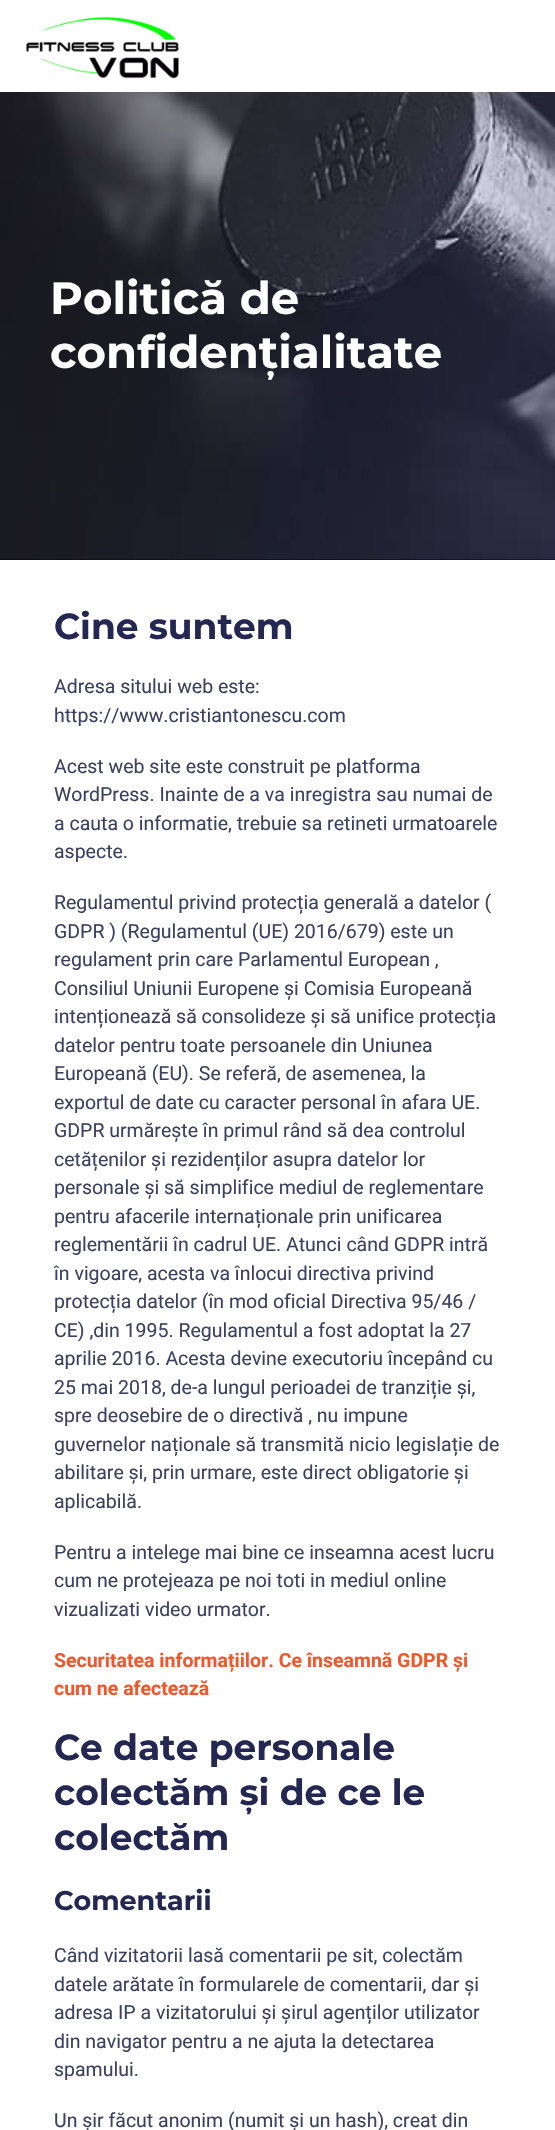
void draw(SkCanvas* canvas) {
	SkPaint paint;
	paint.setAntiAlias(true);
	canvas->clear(0xffffffff);
	paint.setColor(0xff000119);
	canvas->drawRect(SkRect::MakeXYWH(0, 559, 555, 1), paint);
	canvas->drawImageRect(SkImages::DeferredFromEncodedData(SkData::MakeFromFileName("img1.png")), SkRect::MakeXYWH(0, 92, 555, 468), SkSamplingOptions());
	canvas->drawImageRect(SkImages::DeferredFromEncodedData(SkData::MakeFromFileName("img2.png")), SkRect::MakeXYWH(25, 16, 154, 63), SkSamplingOptions());
	SkFont f1(fontMgr->matchFamilyStyle("Montserrat", SkFontStyle::Bold()), 45);
	f1.setSubpixel(true);
	paint.setColor(0xffffffff);
	canvas->drawString("Politică de", 50, 314, f1, paint);
	canvas->drawString("confidențialitate", 50, 368, f1, paint);
	SkFont f2(fontMgr->matchFamilyStyle("Montserrat", SkFontStyle::Bold()), 36);
	f2.setSubpixel(true);
	paint.setColor(0xff242751);
	canvas->drawString("Cine suntem", 54, 639, f2, paint);
	SkFont f3(fontMgr->matchFamilyStyle("Roboto", SkFontStyle::Normal()), 19.5);
	f3.setSubpixel(true);
	paint.setColor(0xff3d4160);
	canvas->drawString("Adresa sitului web este:", 54, 693, f3, paint);
	canvas->drawString("https://www.cristiantonescu.com", 54, 722, f3, paint);
	canvas->drawString("Acest web site este construit pe platforma", 54, 773, f3, paint);
	canvas->drawString("WordPress. Inainte de a va inregistra sau numai de", 54, 801, f3, paint);
	canvas->drawString("a cauta o informatie, trebuie sa retineti urmatoarele", 54, 830, f3, paint);
	canvas->drawString("aspecte.", 54, 858, f3, paint);
	canvas->drawString("Regulamentul privind protecția generală a datelor (", 54, 909, f3, paint);
	canvas->drawString("GDPR ) (Regulamentul (UE) 2016/679) este un", 54, 938, f3, paint);
	canvas->drawString("regulament prin care Parlamentul European ,", 54, 966, f3, paint);
	canvas->drawString("Consiliul Uniunii Europene și Comisia Europeană", 54, 995, f3, paint);
	canvas->drawString("intenționează să consolideze și să unifice protecția", 54, 1023, f3, paint);
	canvas->drawString("datelor pentru toate persoanele din Uniunea", 54, 1052, f3, paint);
	canvas->drawString("Europeană (EU). Se referă, de asemenea, la", 54, 1080, f3, paint);
	canvas->drawString("exportul de date cu caracter personal în afara UE.", 54, 1109, f3, paint);
	canvas->drawString("GDPR urmărește în primul rând să dea controlul", 54, 1137, f3, paint);
	canvas->drawString("cetățenilor și rezidenților asupra datelor lor", 54, 1166, f3, paint);
	canvas->drawString("personale și să simplifice mediul de reglementare", 54, 1194, f3, paint);
	canvas->drawString("pentru afacerile internaționale prin unificarea", 54, 1223, f3, paint);
	canvas->drawString("reglementării în cadrul UE. Atunci când GDPR intră", 54, 1251, f3, paint);
	canvas->drawString("în vigoare, acesta va înlocui directiva privind", 54, 1280, f3, paint);
	canvas->drawString("protecția datelor (în mod oficial Directiva 95/46 /", 54, 1308, f3, paint);
	canvas->drawString("CE) ,din 1995. Regulamentul a fost adoptat la 27", 54, 1337, f3, paint);
	canvas->drawString("aprilie 2016. Acesta devine executoriu începând cu", 54, 1365, f3, paint);
	canvas->drawString("25 mai 2018, de-a lungul perioadei de tranziție și,", 54, 1394, f3, paint);
	canvas->drawString("spre deosebire de o directivă , nu impune", 54, 1422, f3, paint);
	canvas->drawString("guvernelor naționale să transmită nicio legislație de", 54, 1451, f3, paint);
	canvas->drawString("abilitare și, prin urmare, este direct obligatorie și", 54, 1479, f3, paint);
	canvas->drawString("aplicabilă.", 54, 1508, f3, paint);
	canvas->drawString("Pentru a intelege mai bine ce inseamna acest lucru", 54, 1559, f3, paint);
	canvas->drawString("cum ne protejeaza pe noi toti in mediul online", 54, 1587, f3, paint);
	canvas->drawString("vizualizati video urmator.", 54, 1616, f3, paint);
	SkFont f4(fontMgr->matchFamilyStyle("Roboto", SkFontStyle::Bold()), 19.5);
	f4.setSubpixel(true);
	paint.setColor(0xfff0582c);
	canvas->drawString("Securitatea informațiilor. Ce înseamnă GDPR și", 54, 1667, f4, paint);
	canvas->drawString("cum ne afectează", 54, 1695, f4, paint);
	paint.setColor(0xff242751);
	canvas->drawString("Ce date personale", 54, 1760, f2, paint);
	canvas->drawString("colectăm și de ce le", 54, 1805, f2, paint);
	canvas->drawString("colectăm", 54, 1850, f2, paint);
	SkFont f5(fontMgr->matchFamilyStyle("Montserrat", SkFontStyle::Bold()), 27);
	f5.setSubpixel(true);
	canvas->drawString("Comentarii", 54, 1910, f5, paint);
	paint.setColor(0xff3d4160);
	canvas->drawString("Când vizitatorii lasă comentarii pe sit, colectăm", 54, 1962, f3, paint);
	canvas->drawString("datele arătate în formularele de comentarii, dar și", 54, 1991, f3, paint);
	canvas->drawString("adresa IP a vizitatorului și șirul agenților utilizator", 54, 2019, f3, paint);
	canvas->drawString("din navigator pentru a ne ajuta la detectarea", 54, 2048, f3, paint);
	canvas->drawString("spamului.", 54, 2076, f3, paint);
	canvas->drawString("Un șir făcut anonim (numit și un hash), creat din", 54, 2127, f3, paint);
}
